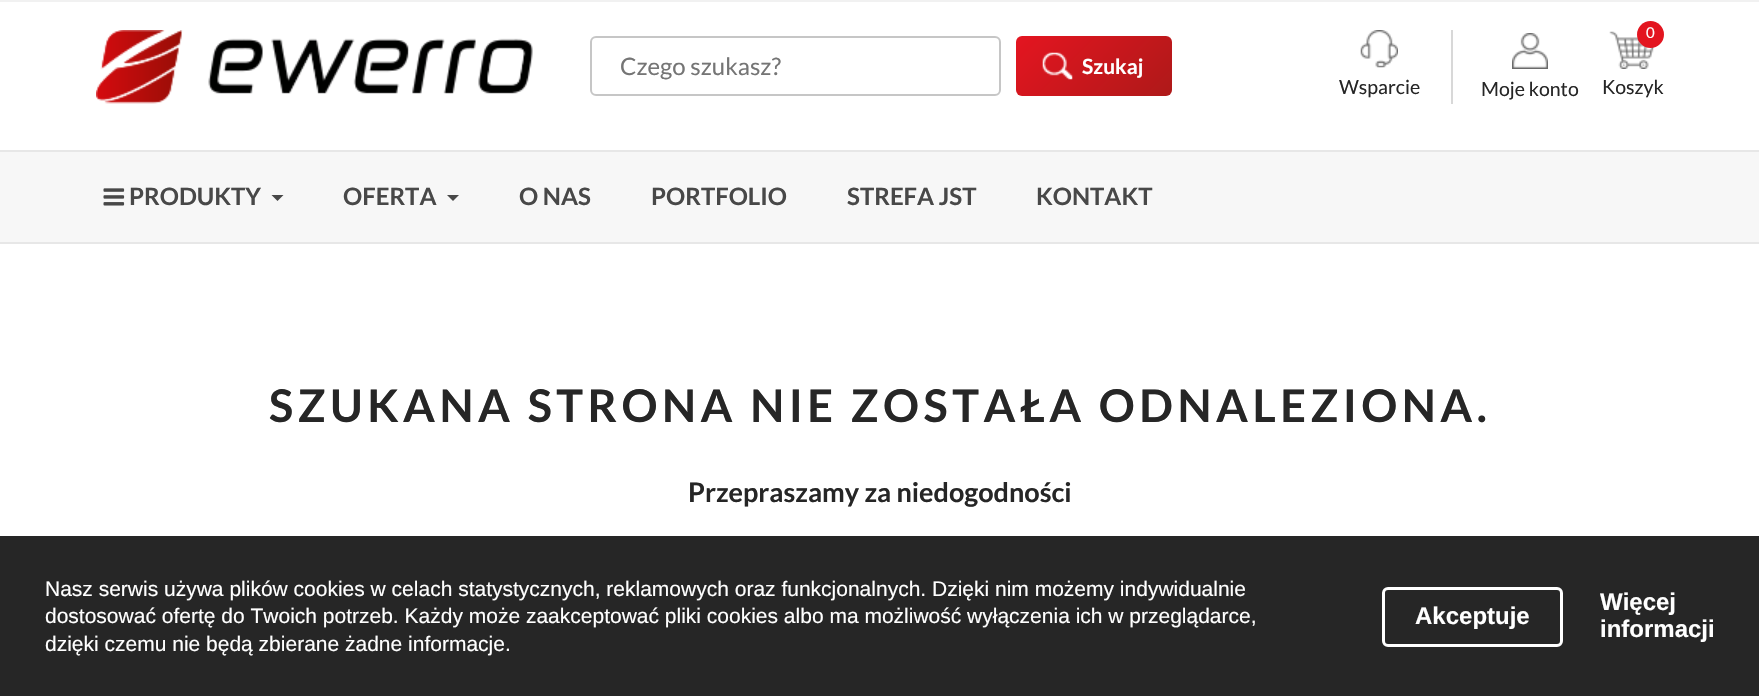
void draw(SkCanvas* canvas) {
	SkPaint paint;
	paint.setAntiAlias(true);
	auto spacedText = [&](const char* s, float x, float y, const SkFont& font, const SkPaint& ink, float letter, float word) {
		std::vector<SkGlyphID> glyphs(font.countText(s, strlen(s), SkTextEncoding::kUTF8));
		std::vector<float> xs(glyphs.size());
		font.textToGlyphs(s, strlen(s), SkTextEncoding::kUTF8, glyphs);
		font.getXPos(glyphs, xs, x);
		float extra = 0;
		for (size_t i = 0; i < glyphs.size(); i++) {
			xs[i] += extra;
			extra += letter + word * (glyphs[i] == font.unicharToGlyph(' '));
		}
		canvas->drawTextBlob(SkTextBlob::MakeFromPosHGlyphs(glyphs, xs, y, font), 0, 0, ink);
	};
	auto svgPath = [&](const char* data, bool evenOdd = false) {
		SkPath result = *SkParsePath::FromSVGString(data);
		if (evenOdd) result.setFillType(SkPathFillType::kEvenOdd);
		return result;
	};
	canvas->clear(0xffffffff);
	paint.setColor(0xfff1f1f1);
	canvas->drawRect(SkRect::MakeXYWH(0, 0, 1759, 2), paint);
	canvas->drawImageRect(SkImages::DeferredFromEncodedData(SkData::MakeFromFileName("img1.png")), SkRect::MakeXYWH(96, 30, 437, 74), SkSamplingOptions());
	paint.setStroke(true);
	paint.setStrokeWidth(2);
	paint.setColor(0xffc6c6c6);
	canvas->drawRoundRect(SkRect::MakeXYWH(591, 37, 409, 58), 5, 5, paint);
	SkFont f1(fontMgr->matchFamilyStyle("Lato", SkFontStyle::Normal()), 24);
	f1.setSubpixel(true);
	paint.setStroke(false);
	paint.setColor(0xff757575);
	canvas->drawString("Czego szukasz?", 620, 75, f1, paint);
	{
		const SkColor colors[] = {0xffae1919, 0xffe41520};
		const float stops[] = {0, 1};
		const SkPoint ends[] = {{1148, 120}, {1040, 12}};
		paint.setShader(SkGradientShader::MakeLinear(ends, colors, stops, 2, SkTileMode::kClamp));
		paint.setAlpha(255);
	}
	canvas->drawRoundRect(SkRect::MakeXYWH(1016, 36, 156, 60), 6, 6, paint);
	canvas->drawImageRect(SkImages::DeferredFromEncodedData(SkData::MakeFromFileName("img2.png")), SkRect::MakeXYWH(1042, 52, 31, 28), SkSamplingOptions());
	SkFont f2(fontMgr->matchFamilyStyle("Lato", SkFontStyle::Bold()), 21);
	f2.setSubpixel(true);
	paint.setShader(nullptr);
	paint.setColor(0xffffffff);
	canvas->drawString("Szukaj", 1082, 74, f2, paint);
	paint.setColor(0xffd8d8d8);
	canvas->drawRect(SkRect::MakeXYWH(1451, 30, 2, 74), paint);
	canvas->drawImageRect(SkImages::DeferredFromEncodedData(SkData::MakeFromFileName("img3.png")), SkRect::MakeXYWH(1360, 30, 38, 38), SkSamplingOptions());
	SkFont f3(fontMgr->matchFamilyStyle("Lato", SkFontStyle::Normal()), 19.5);
	f3.setSubpixel(true);
	paint.setColor(0xff262626);
	canvas->drawString("Wsparcie", 1339, 94, f3, paint);
	canvas->drawImageRect(SkImages::DeferredFromEncodedData(SkData::MakeFromFileName("img4.png")), SkRect::MakeXYWH(1512, 33, 36, 36), SkSamplingOptions());
	canvas->drawString("Moje konto", 1481, 96, f3, paint);
	canvas->drawImageRect(SkImages::DeferredFromEncodedData(SkData::MakeFromFileName("img5.png")), SkRect::MakeXYWH(1609, 31, 45, 38), SkSamplingOptions());
	paint.setColor(0xffe3151f);
	canvas->drawCircle(1650.5, 34.5, 13.5, paint);
	SkFont f4(fontMgr->matchFamilyStyle("Lato", SkFontStyle::Normal()), 15);
	f4.setSubpixel(true);
	paint.setColor(0xffffffff);
	canvas->drawString("0", 1646, 38, f4, paint);
	paint.setColor(0xff262626);
	canvas->drawString("Koszyk", 1602, 94, f3, paint);
	paint.setColor(0xfff7f7f7);
	canvas->drawRect(SkRect::MakeXYWH(0, 152, 1759, 90), paint);
	paint.setColor(0xffe7e7e7);
	canvas->drawRect(SkRect::MakeXYWH(0, 150, 1759, 2), paint);
	canvas->drawRect(SkRect::MakeXYWH(0, 242, 1759, 2), paint);
	canvas->drawImageRect(SkImages::DeferredFromEncodedData(SkData::MakeFromFileName("img6.png")), SkRect::MakeXYWH(103, 188, 22, 18), SkSamplingOptions());
	SkFont f5(fontMgr->matchFamilyStyle("Lato", SkFontStyle::Bold()), 24);
	f5.setSubpixel(true);
	paint.setColor(0xff484848);
	canvas->drawString("PRODUKTY", 129, 205, f5, paint);
	canvas->drawPath(svgPath("M271.5 195H283.5L277.5 201Z"), paint);
	canvas->drawString("OFERTA", 343, 205, f5, paint);
	canvas->drawPath(svgPath("M447 195H459L453 201Z"), paint);
	canvas->drawString("O NAS", 519, 205, f5, paint);
	canvas->drawString("PORTFOLIO", 651, 205, f5, paint);
	canvas->drawString("STREFA JST", 847, 205, f5, paint);
	canvas->drawString("KONTAKT", 1036, 205, f5, paint);
	SkFont f6(fontMgr->matchFamilyStyle("Lato", SkFontStyle::Bold()), 45);
	f6.setSubpixel(true);
	paint.setColor(0xff262626);
	spacedText("SZUKANA STRONA NIE ZOSTAŁA ODNALEZIONA.", 269, 422, f6, paint, 4.5, 0);
	SkFont f7(fontMgr->matchFamilyStyle("Lato", SkFontStyle::Bold()), 27);
	f7.setSubpixel(true);
	canvas->drawString("Przepraszamy za niedogodności", 688, 502, f7, paint);
	canvas->drawRect(SkRect::MakeXYWH(0, 536, 1759, 160), paint);
	SkFont f8(fontMgr->matchFamilyStyle("Liberation Sans", SkFontStyle::Normal()), 21);
	f8.setSubpixel(true);
	paint.setColor(0xffffffff);
	canvas->drawString("Nasz serwis używa plików cookies w celach statystycznych, reklamowych oraz funkcjonalnych. Dzięki nim możemy indywidualnie", 45, 596, f8, paint);
	canvas->drawString("dostosować ofertę do Twoich potrzeb. Każdy może zaakceptować pliki cookies albo ma możliwość wyłączenia ich w przeglądarce,", 45, 623, f8, paint);
	canvas->drawString("dzięki czemu nie będą zbierane żadne informacje.", 45, 651, f8, paint);
	paint.setStroke(true);
	paint.setStrokeWidth(3);
	canvas->drawRoundRect(SkRect::MakeXYWH(1383.5, 588.5, 178, 57), 4.5, 4.5, paint);
	SkFont f9(fontMgr->matchFamilyStyle("Liberation Sans", SkFontStyle::Bold()), 24);
	f9.setSubpixel(true);
	paint.setStroke(false);
	canvas->drawString("Akceptuje", 1415, 624, f9, paint);
	canvas->drawString("Więcej", 1600, 610, f9, paint);
	canvas->drawString("informacji", 1600, 637, f9, paint);
}
